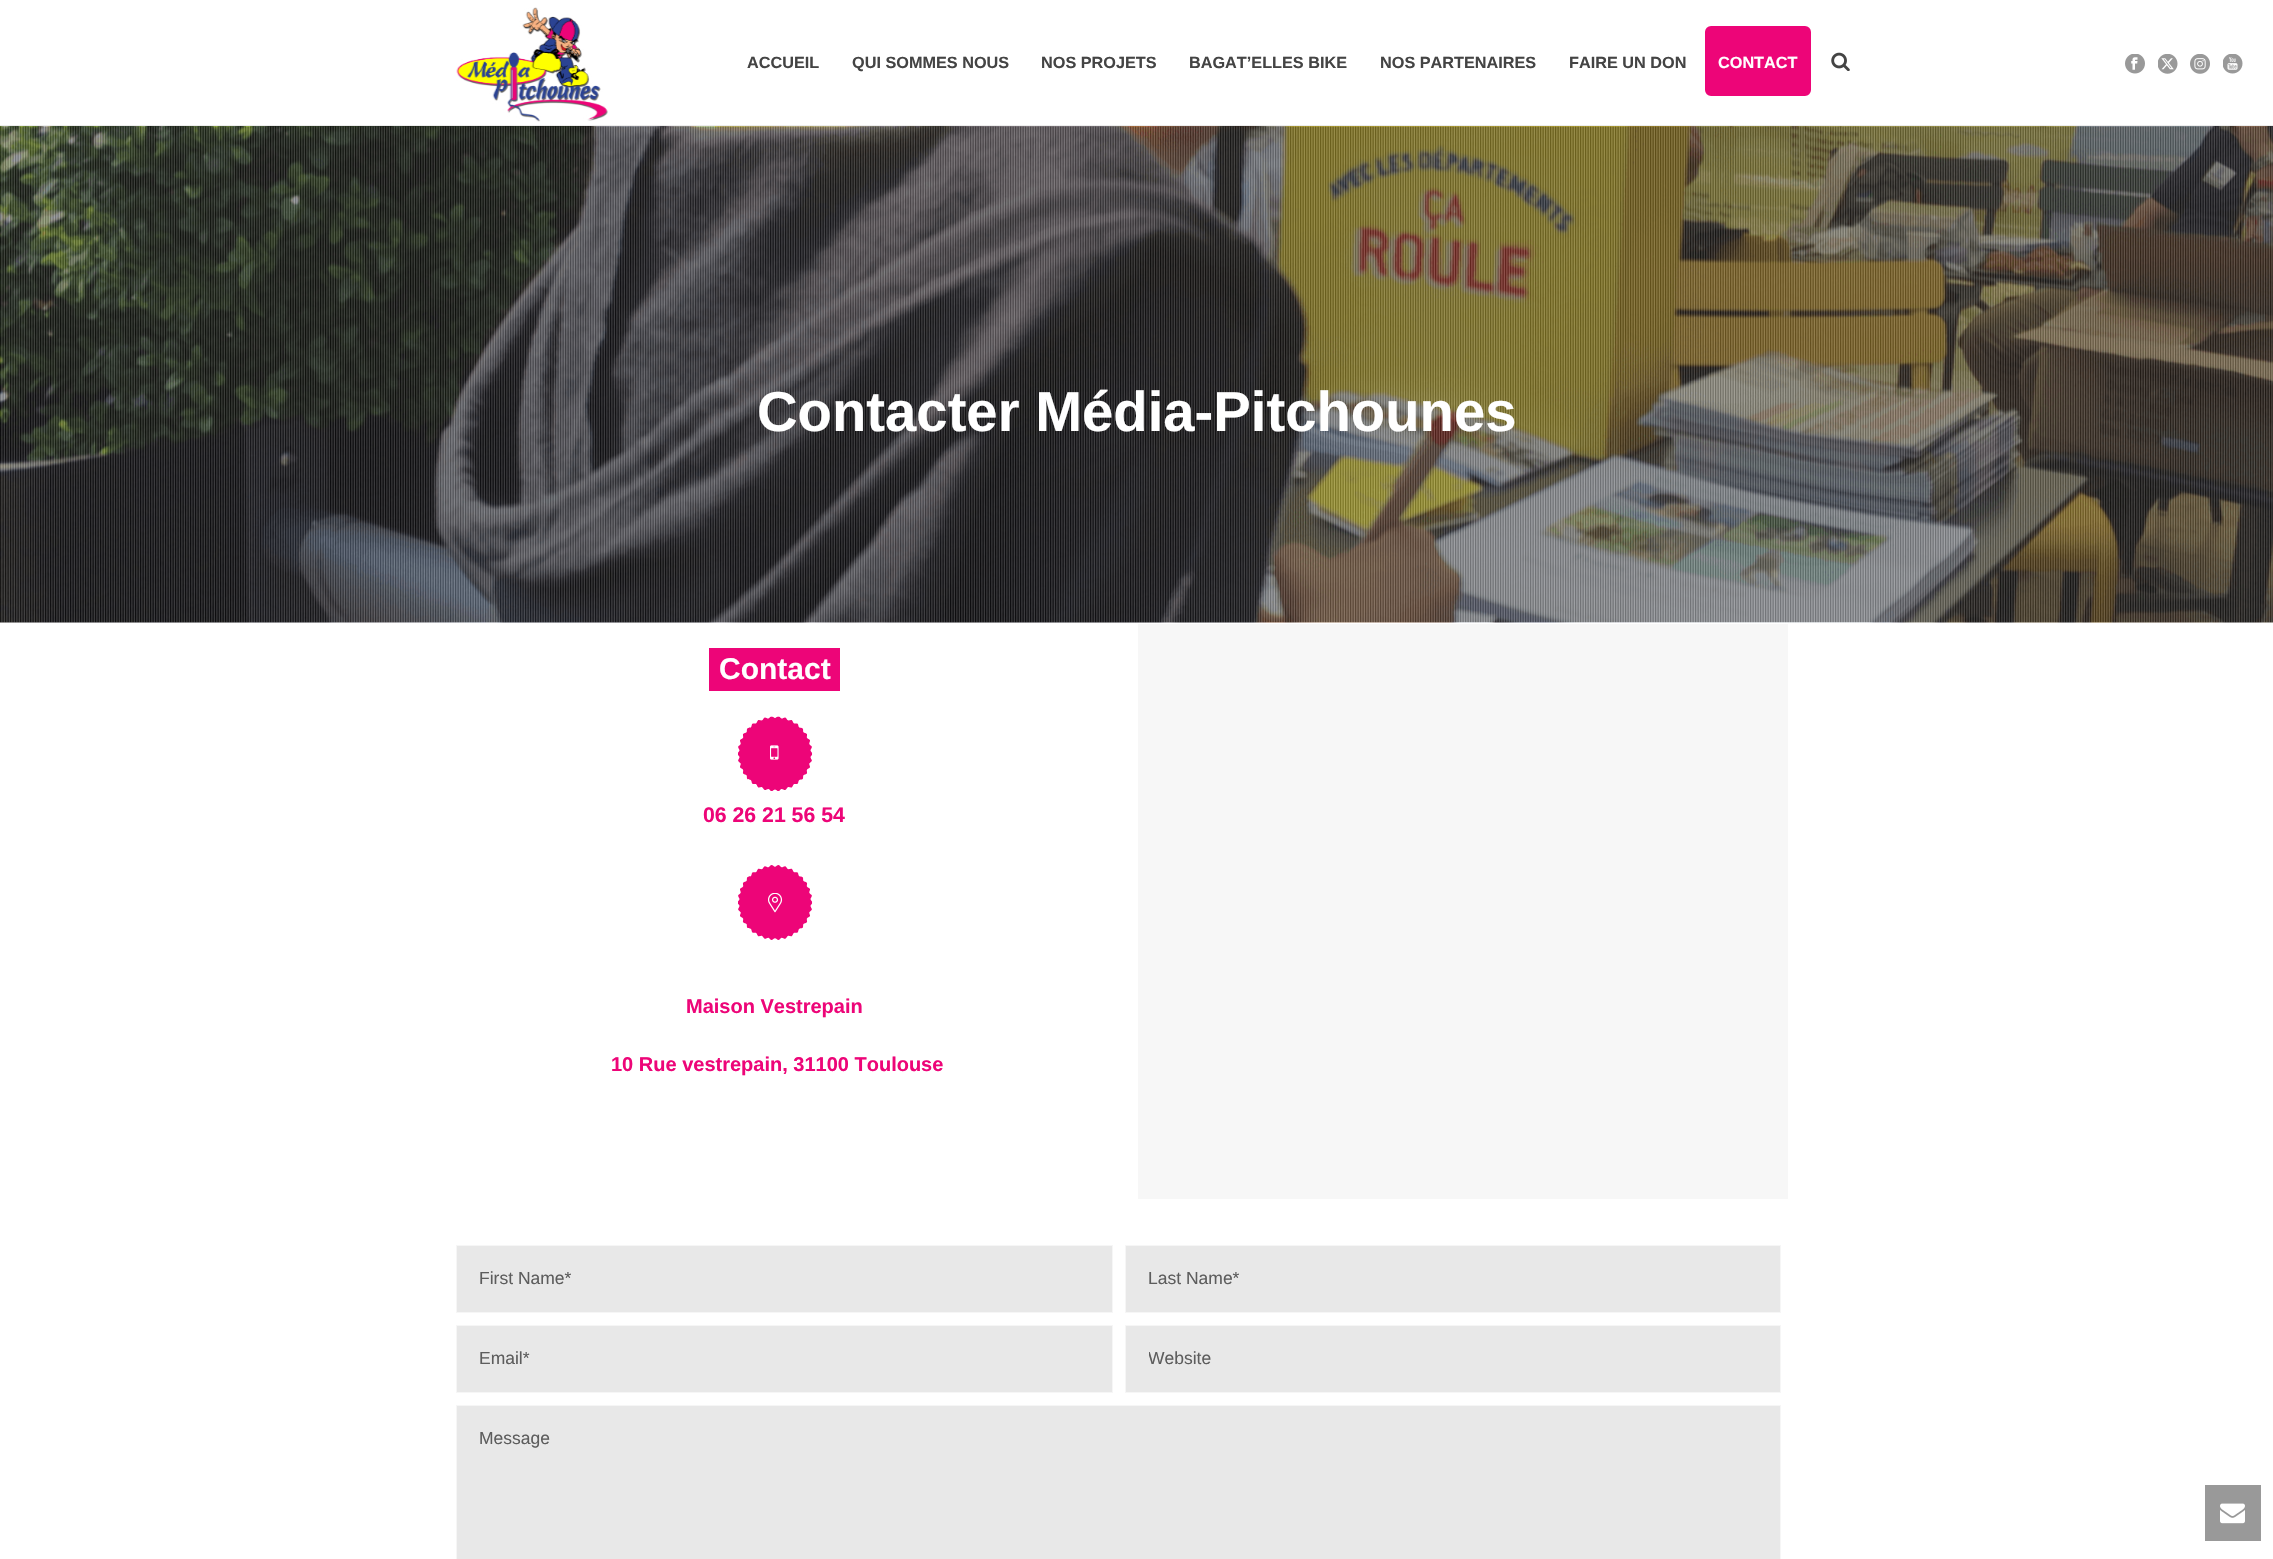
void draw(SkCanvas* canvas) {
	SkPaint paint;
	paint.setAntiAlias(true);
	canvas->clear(0xffffffff);
	paint.setColor(0xffededed);
	canvas->drawRect(SkRect::MakeXYWH(0, 125, 2273, 1), paint);
	canvas->drawImageRect(SkImages::DeferredFromEncodedData(SkData::MakeFromFileName("img1.png")), SkRect::MakeXYWH(456, 7, 152, 115), SkSamplingOptions());
	SkFont f1(fontMgr->matchFamilyStyle("Liberation Sans", SkFontStyle::Bold()), 16.25);
	f1.setSubpixel(true);
	paint.setColor(0xff444444);
	canvas->drawString("ACCUEIL", 747, 68, f1, paint);
	canvas->drawString("QUI SOMMES NOUS", 852, 68, f1, paint);
	canvas->drawString("NOS PROJETS", 1041, 68, f1, paint);
	canvas->drawString("BAGAT’ELLES BIKE", 1189, 68, f1, paint);
	canvas->drawString("NOS PARTENAIRES", 1380, 68, f1, paint);
	canvas->drawString("FAIRE UN DON", 1569, 68, f1, paint);
	paint.setColor(0xffed0578);
	canvas->drawRoundRect(SkRect::MakeXYWH(1706.5, 27.5, 103, 67), 4.5, 4.5, paint);
	paint.setStroke(true);
	paint.setStrokeWidth(3);
	canvas->drawRoundRect(SkRect::MakeXYWH(1706.5, 27.5, 103, 67), 4.5, 4.5, paint);
	paint.setStroke(false);
	paint.setColor(0xffffffff);
	canvas->drawString("CONTACT", 1718, 68, f1, paint);
	canvas->drawImageRect(SkImages::DeferredFromEncodedData(SkData::MakeFromFileName("img2.png")), SkRect::MakeXYWH(1831, 52, 19, 19), SkSamplingOptions());
	canvas->drawImageRect(SkImages::DeferredFromEncodedData(SkData::MakeFromFileName("img3.png")), SkRect::MakeXYWH(2125, 54, 20, 20), SkSamplingOptions());
	canvas->drawImageRect(SkImages::DeferredFromEncodedData(SkData::MakeFromFileName("img4.png")), SkRect::MakeXYWH(2158, 54, 20, 20), SkSamplingOptions());
	canvas->drawImageRect(SkImages::DeferredFromEncodedData(SkData::MakeFromFileName("img5.png")), SkRect::MakeXYWH(2190, 54, 20, 20), SkSamplingOptions());
	canvas->drawImageRect(SkImages::DeferredFromEncodedData(SkData::MakeFromFileName("img6.png")), SkRect::MakeXYWH(2223, 54, 20, 20), SkSamplingOptions());
	canvas->drawImageRect(SkImages::DeferredFromEncodedData(SkData::MakeFromFileName("img7.png")), SkRect::MakeXYWH(0, 126, 2273, 497), SkSamplingOptions());
	canvas->drawImageRect(SkImages::DeferredFromEncodedData(SkData::MakeFromFileName("img8.png")), SkRect::MakeXYWH(0, 126, 2273, 497), SkSamplingOptions());
	SkFont f2(fontMgr->matchFamilyStyle("Liberation Sans", SkFontStyle::Bold()), 56.25);
	f2.setSubpixel(true);
	canvas->drawString("Contacter Média-Pitchounes", 757, 431, f2, paint);
	paint.setColor(0xffed0578);
	canvas->drawRect(SkRect::MakeXYWH(719, 648, 121, 43), paint);
	SkFont f3(fontMgr->matchFamilyStyle("Liberation Sans", SkFontStyle::Bold()), 30);
	f3.setSubpixel(true);
	paint.setColor(0xffffffff);
	canvas->drawString("Contact", 719, 679, f3, paint);
	paint.setColor(0xffed0578);
	canvas->drawRect(SkRect::MakeXYWH(709, 648, 10, 43), paint);
	canvas->drawImageRect(SkImages::DeferredFromEncodedData(SkData::MakeFromFileName("img9.png")), SkRect::MakeXYWH(738, 716, 75, 75), SkSamplingOptions());
	canvas->drawImageRect(SkImages::DeferredFromEncodedData(SkData::MakeFromFileName("img10.png")), SkRect::MakeXYWH(770, 745, 9, 15), SkSamplingOptions());
	SkFont f4(fontMgr->matchFamilyStyle("Liberation Sans", SkFontStyle::Bold()), 21.25);
	f4.setSubpixel(true);
	canvas->drawString("06 26 21 56 54", 703, 822, f4, paint);
	canvas->drawImageRect(SkImages::DeferredFromEncodedData(SkData::MakeFromFileName("img11.png")), SkRect::MakeXYWH(738, 865, 75, 75), SkSamplingOptions());
	canvas->drawImageRect(SkImages::DeferredFromEncodedData(SkData::MakeFromFileName("img12.png")), SkRect::MakeXYWH(768, 893, 15, 20), SkSamplingOptions());
	SkFont f5(fontMgr->matchFamilyStyle("Liberation Sans", SkFontStyle::Bold()), 20);
	f5.setSubpixel(true);
	canvas->drawString("Maison Vestrepain", 686, 1013, f5, paint);
	canvas->drawString("10 Rue vestrepain, 31100 Toulouse", 611, 1071, f5, paint);
	paint.setColor(0xfff7f7f7);
	canvas->drawRect(SkRect::MakeXYWH(1138, 624, 650, 575), paint);
	paint.setColor(0xffe8e8e8);
	canvas->drawRect(SkRect::MakeXYWH(456.5, 1245.5, 656, 67), paint);
	paint.setStroke(true);
	paint.setStrokeWidth(1);
	paint.setColor(0xfff6f6f6);
	canvas->drawRect(SkRect::MakeXYWH(456.5, 1245.5, 656, 67), paint);
	SkFont f6(fontMgr->matchFamilyStyle("Liberation Sans", SkFontStyle::Normal()), 17.5);
	f6.setSubpixel(true);
	paint.setStroke(false);
	paint.setColor(0xff5d5d5d);
	canvas->drawString("First Name*", 479, 1284, f6, paint);
	paint.setColor(0xffe8e8e8);
	canvas->drawRect(SkRect::MakeXYWH(1125.5, 1245.5, 655, 67), paint);
	paint.setStroke(true);
	paint.setColor(0xfff6f6f6);
	canvas->drawRect(SkRect::MakeXYWH(1125.5, 1245.5, 655, 67), paint);
	paint.setStroke(false);
	paint.setColor(0xff5d5d5d);
	canvas->drawString("Last Name*", 1148, 1284, f6, paint);
	paint.setColor(0xffe8e8e8);
	canvas->drawRect(SkRect::MakeXYWH(456.5, 1325.5, 656, 67), paint);
	paint.setStroke(true);
	paint.setColor(0xfff6f6f6);
	canvas->drawRect(SkRect::MakeXYWH(456.5, 1325.5, 656, 67), paint);
	paint.setStroke(false);
	paint.setColor(0xff5d5d5d);
	canvas->drawString("Email*", 479, 1364, f6, paint);
	paint.setColor(0xffe8e8e8);
	canvas->drawRect(SkRect::MakeXYWH(1125.5, 1325.5, 655, 67), paint);
	paint.setStroke(true);
	paint.setColor(0xfff6f6f6);
	canvas->drawRect(SkRect::MakeXYWH(1125.5, 1325.5, 655, 67), paint);
	canvas->save();
	canvas->clipRect(SkRect::MakeXYWH(1149, 1349, 609, 20));
	paint.setStroke(false);
	paint.setColor(0xff5d5d5d);
	canvas->drawString("Website", 1148, 1364, f6, paint);
	canvas->restore();
	paint.setColor(0xffe8e8e8);
	canvas->drawRect(SkRect::MakeXYWH(456.5, 1405.5, 1324, 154), paint);
	paint.setStroke(true);
	paint.setColor(0xfff6f6f6);
	canvas->drawRect(SkRect::MakeXYWH(456.5, 1405.5, 1324, 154), paint);
	paint.setStroke(false);
	paint.setColor(0xff5d5d5d);
	canvas->drawString("Message", 479, 1444, f6, paint);
	paint.setColor(0xff999999);
	canvas->drawRect(SkRect::MakeXYWH(2205, 1485, 56, 56), paint);
	canvas->drawImageRect(SkImages::DeferredFromEncodedData(SkData::MakeFromFileName("img13.png")), SkRect::MakeXYWH(2220, 1503, 25, 21), SkSamplingOptions());
}
